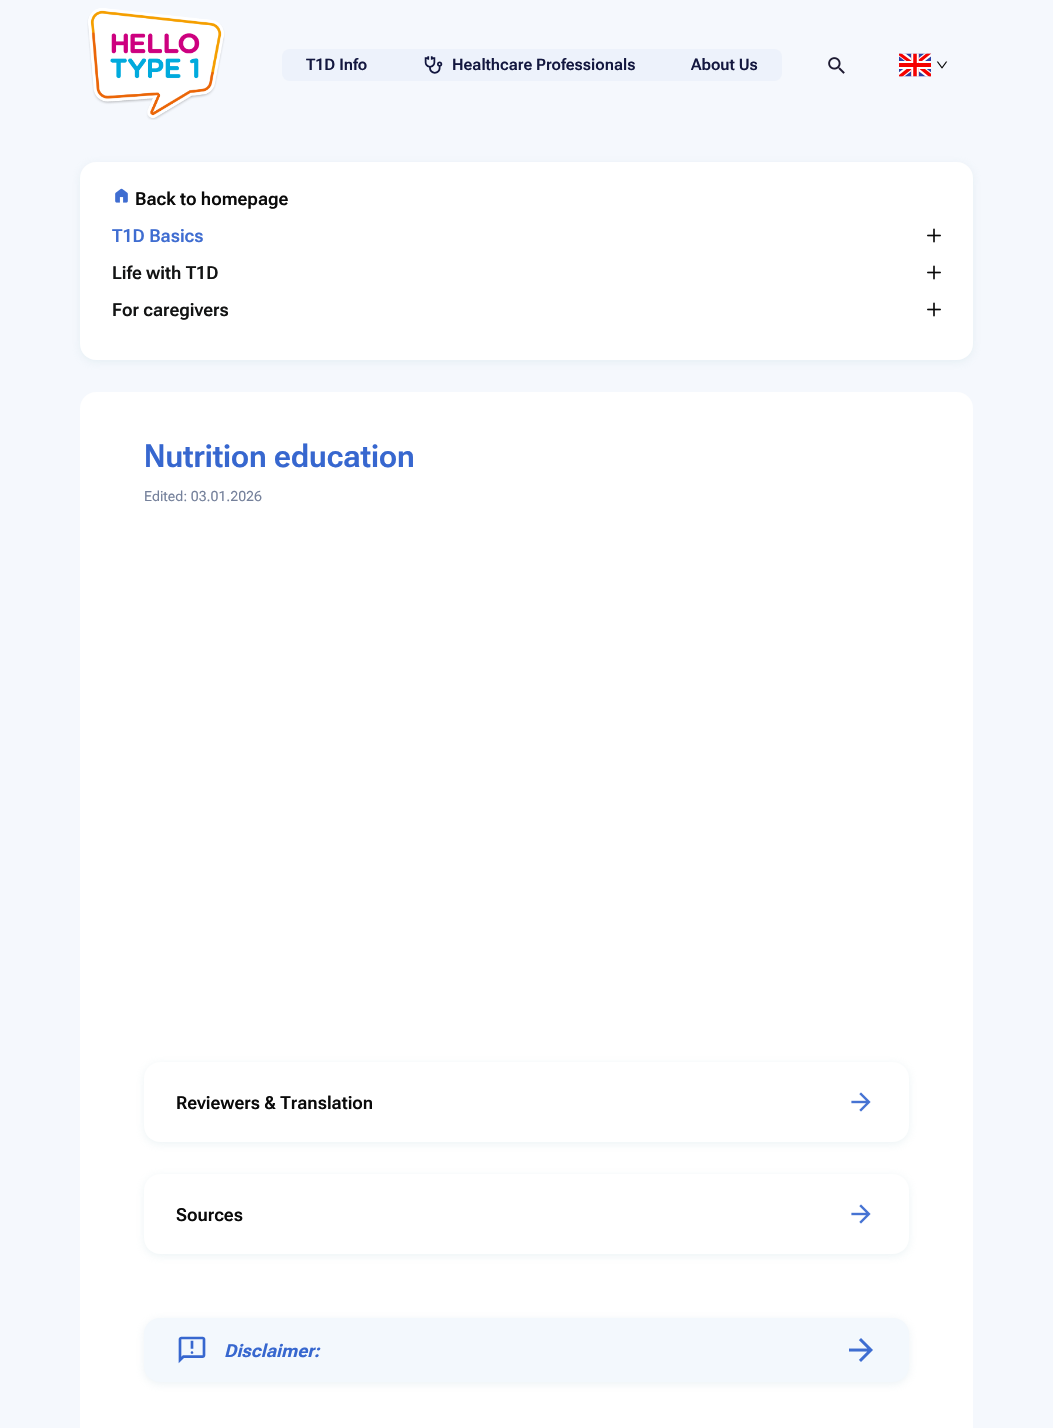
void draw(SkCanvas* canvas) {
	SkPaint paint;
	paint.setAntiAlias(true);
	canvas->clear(0xfff5f8fd);
	canvas->drawImageRect(SkImages::DeferredFromEncodedData(SkData::MakeFromFileName("img1.png")), SkRect::MakeXYWH(87, 8, 138, 112), SkSamplingOptions());
	paint.setColor(0xffedf2fb);
	canvas->drawRoundRect(SkRect::MakeXYWH(282, 49, 500, 32), 8, 8, paint);
	SkFont f1(fontMgr->matchFamilyStyle("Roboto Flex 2", SkFontStyle(600, SkFontStyle::kNormal_Width, SkFontStyle::kUpright_Slant)), 16);
	f1.setSubpixel(true);
	paint.setColor(0xff13173f);
	canvas->drawString("T1D Info", 306, 70, f1, paint);
	canvas->drawImageRect(SkImages::DeferredFromEncodedData(SkData::MakeFromFileName("img2.png")), SkRect::MakeXYWH(424, 56, 19, 18), SkSamplingOptions());
	canvas->drawString("Healthcare Professionals", 452, 70, f1, paint);
	canvas->drawString("About Us", 691, 70, f1, paint);
	canvas->drawImageRect(SkImages::DeferredFromEncodedData(SkData::MakeFromFileName("img3.png")), SkRect::MakeXYWH(828, 57, 17, 17), SkSamplingOptions());
	canvas->drawImageRect(SkImages::DeferredFromEncodedData(SkData::MakeFromFileName("img4.png")), SkRect::MakeXYWH(899, 53, 32, 24), SkSamplingOptions());
	canvas->drawImageRect(SkImages::DeferredFromEncodedData(SkData::MakeFromFileName("img5.png")), SkRect::MakeXYWH(936, 61, 12, 8), SkSamplingOptions());
	paint.setColor(0x3db1cbd6);
	paint.setMaskFilter(SkMaskFilter::MakeBlur(kNormal_SkBlurStyle, 4));
	canvas->drawRoundRect(SkRect::MakeXYWH(80, 164, 893, 198), 16, 16, paint);
	paint.setMaskFilter(nullptr);
	paint.setColor(0xffffffff);
	canvas->drawRoundRect(SkRect::MakeXYWH(80, 162, 893, 198), 16, 16, paint);
	canvas->drawImageRect(SkImages::DeferredFromEncodedData(SkData::MakeFromFileName("img6.png")), SkRect::MakeXYWH(115, 188, 13, 15), SkSamplingOptions());
	SkFont f2(fontMgr->matchFamilyStyle("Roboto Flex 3", SkFontStyle(600, SkFontStyle::kNormal_Width, SkFontStyle::kUpright_Slant)), 18);
	f2.setSubpixel(true);
	paint.setColor(0xff0a0a0a);
	canvas->drawString("Back to homepage", 135, 205, f2, paint);
	paint.setColor(0xff3f6dd1);
	canvas->drawString("T1D Basics", 112, 242, f2, paint);
	canvas->drawImageRect(SkImages::DeferredFromEncodedData(SkData::MakeFromFileName("img7.png")), SkRect::MakeXYWH(927, 228, 14, 15), SkSamplingOptions());
	paint.setColor(0xff131414);
	canvas->drawString("Life with T1D", 112, 279, f2, paint);
	canvas->drawImageRect(SkImages::DeferredFromEncodedData(SkData::MakeFromFileName("img7.png")), SkRect::MakeXYWH(927, 265, 14, 15), SkSamplingOptions());
	canvas->drawString("For caregivers", 112, 316, f2, paint);
	canvas->drawImageRect(SkImages::DeferredFromEncodedData(SkData::MakeFromFileName("img7.png")), SkRect::MakeXYWH(927, 302, 14, 15), SkSamplingOptions());
	paint.setColor(0xffffffff);
	canvas->drawRoundRect(SkRect::MakeXYWH(80, 392, 893, 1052), 16, 16, paint);
	SkFont f3(fontMgr->matchFamilyStyle("Roboto Flex", SkFontStyle(600, SkFontStyle::kNormal_Width, SkFontStyle::kUpright_Slant)), 32);
	f3.setSubpixel(true);
	paint.setColor(0xff3767cf);
	canvas->drawString("Nutrition education", 144, 467, f3, paint);
	SkFont f4(fontMgr->matchFamilyStyle("Roboto Flex", SkFontStyle::Normal()), 14);
	f4.setSubpixel(true);
	paint.setColor(0xff75819b);
	canvas->drawString("Edited: 03.01.2026", 144, 501, f4, paint);
	paint.setColor(0x3db1cbd6);
	paint.setMaskFilter(SkMaskFilter::MakeBlur(kNormal_SkBlurStyle, 4));
	canvas->drawRoundRect(SkRect::MakeXYWH(144, 1064, 765, 80), 16, 16, paint);
	paint.setMaskFilter(nullptr);
	paint.setColor(0xffffffff);
	canvas->drawRoundRect(SkRect::MakeXYWH(144, 1062, 765, 80), 16, 16, paint);
	paint.setColor(0xff0a0a0a);
	canvas->drawString("Reviewers & Translation", 176, 1109, f2, paint);
	canvas->drawImageRect(SkImages::DeferredFromEncodedData(SkData::MakeFromFileName("img8.png")), SkRect::MakeXYWH(851, 1092, 20, 20), SkSamplingOptions());
	paint.setColor(0x3db1cbd6);
	paint.setMaskFilter(SkMaskFilter::MakeBlur(kNormal_SkBlurStyle, 4));
	canvas->drawRoundRect(SkRect::MakeXYWH(144, 1176, 765, 80), 16, 16, paint);
	paint.setMaskFilter(nullptr);
	paint.setColor(0xffffffff);
	canvas->drawRoundRect(SkRect::MakeXYWH(144, 1174, 765, 80), 16, 16, paint);
	paint.setColor(0xff0a0a0a);
	canvas->drawString("Sources", 176, 1221, f2, paint);
	canvas->drawImageRect(SkImages::DeferredFromEncodedData(SkData::MakeFromFileName("img8.png")), SkRect::MakeXYWH(851, 1204, 20, 20), SkSamplingOptions());
	paint.setColor(0x3daec9d4);
	paint.setMaskFilter(SkMaskFilter::MakeBlur(kNormal_SkBlurStyle, 4));
	canvas->drawRoundRect(SkRect::MakeXYWH(144, 1320, 765, 64), 16, 16, paint);
	paint.setMaskFilter(nullptr);
	paint.setColor(0xfff3f8fd);
	canvas->drawRoundRect(SkRect::MakeXYWH(144, 1318, 765, 64), 16, 16, paint);
	canvas->drawImageRect(SkImages::DeferredFromEncodedData(SkData::MakeFromFileName("img9.png")), SkRect::MakeXYWH(178, 1336, 28, 28), SkSamplingOptions());
	SkFont f5(fontMgr->matchFamilyStyle("Roboto Flex", SkFontStyle::BoldItalic()), 18);
	f5.setSubpixel(true);
	paint.setColor(0xff3767cf);
	canvas->drawString("Disclaimer:", 224, 1357, f5, paint);
	canvas->drawImageRect(SkImages::DeferredFromEncodedData(SkData::MakeFromFileName("img10.png")), SkRect::MakeXYWH(849, 1338, 24, 24), SkSamplingOptions());
}
